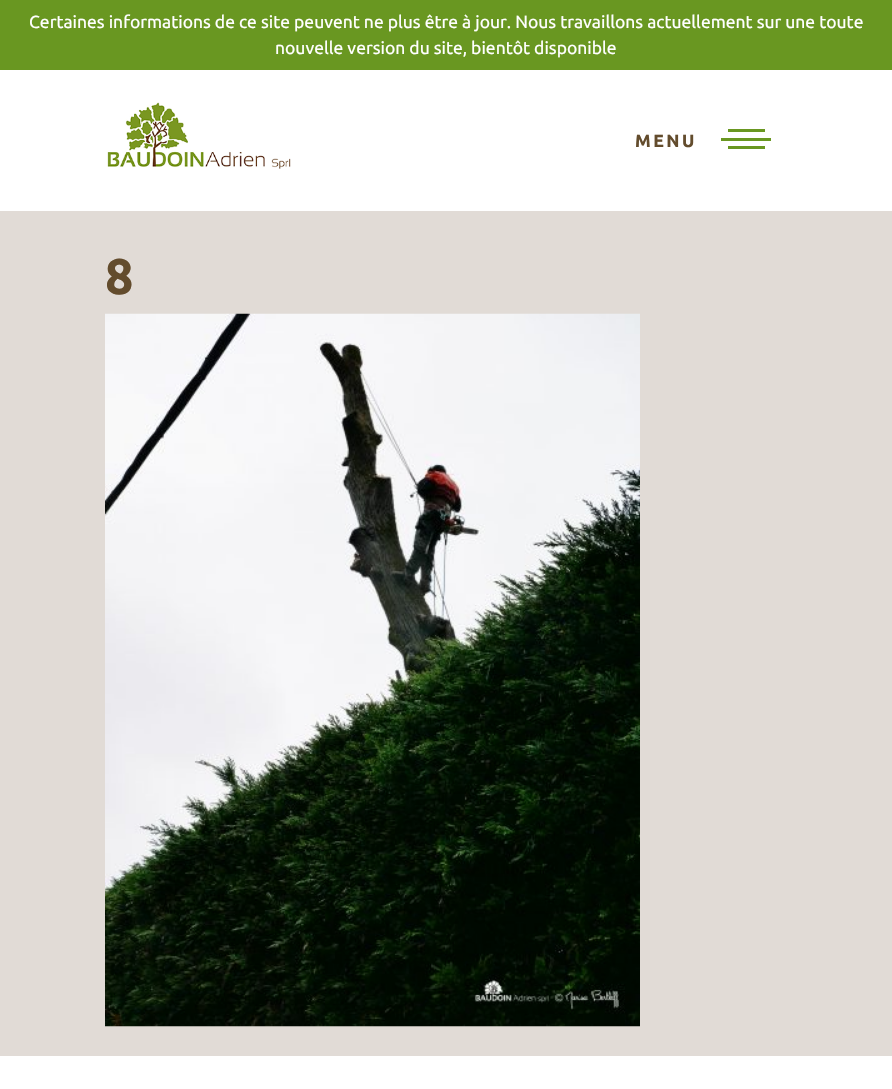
void draw(SkCanvas* canvas) {
	SkPaint paint;
	paint.setAntiAlias(true);
	auto spacedText = [&](const char* s, float x, float y, const SkFont& font, const SkPaint& ink, float letter, float word) {
		std::vector<SkGlyphID> glyphs(font.countText(s, strlen(s), SkTextEncoding::kUTF8));
		std::vector<float> xs(glyphs.size());
		font.textToGlyphs(s, strlen(s), SkTextEncoding::kUTF8, glyphs);
		font.getXPos(glyphs, xs, x);
		float extra = 0;
		for (size_t i = 0; i < glyphs.size(); i++) {
			xs[i] += extra;
			extra += letter + word * (glyphs[i] == font.unicharToGlyph(' '));
		}
		canvas->drawTextBlob(SkTextBlob::MakeFromPosHGlyphs(glyphs, xs, y, font), 0, 0, ink);
	};
	canvas->clear(0xffe1dbd6);
	paint.setColor(0xff699721);
	canvas->drawRect(SkRect::MakeXYWH(0, 0, 892, 70), paint);
	SkFont f1(fontMgr->matchFamilyStyle("Ubuntu", SkFontStyle::Normal()), 17.5);
	f1.setSubpixel(true);
	paint.setColor(0xffffffff);
	canvas->drawString("Certaines informations de ce site peuvent ne plus être à jour. Nous travaillons actuellement sur une toute", 29, 28, f1, paint);
	canvas->drawString("nouvelle version du site, bientôt disponible", 275, 54, f1, paint);
	canvas->drawRect(SkRect::MakeXYWH(0, 70, 892, 141), paint);
	canvas->drawImageRect(SkImages::DeferredFromEncodedData(SkData::MakeFromFileName("img1.png")), SkRect::MakeXYWH(106, 102, 185, 67), SkSamplingOptions());
	SkFont f2(fontMgr->matchFamilyStyle("Ubuntu", SkFontStyle::Bold()), 17.5);
	f2.setSubpixel(true);
	paint.setColor(0xff634c2d);
	spacedText("MENU", 635, 147, f2, paint, 2.5, 0);
	paint.setColor(0xff699721);
	canvas->drawRect(SkRect::MakeXYWH(728, 129, 37, 3), paint);
	canvas->drawRect(SkRect::MakeXYWH(721, 138, 50, 3), paint);
	canvas->drawRect(SkRect::MakeXYWH(728, 146, 37, 3), paint);
	SkFont f3(fontMgr->matchFamilyStyle("Ubuntu", SkFontStyle::Bold()), 50);
	f3.setSubpixel(true);
	paint.setColor(0xff634c2d);
	spacedText("8", 105, 294, f3, paint, 1, 0);
	canvas->drawImageRect(SkImages::DeferredFromEncodedData(SkData::MakeFromFileName("img2.png")), SkRect::MakeXYWH(105, 313, 535, 714), SkSamplingOptions());
	paint.setColor(0xffffffff);
	canvas->drawRect(SkRect::MakeXYWH(0, 1056, 892, 33), paint);
}
